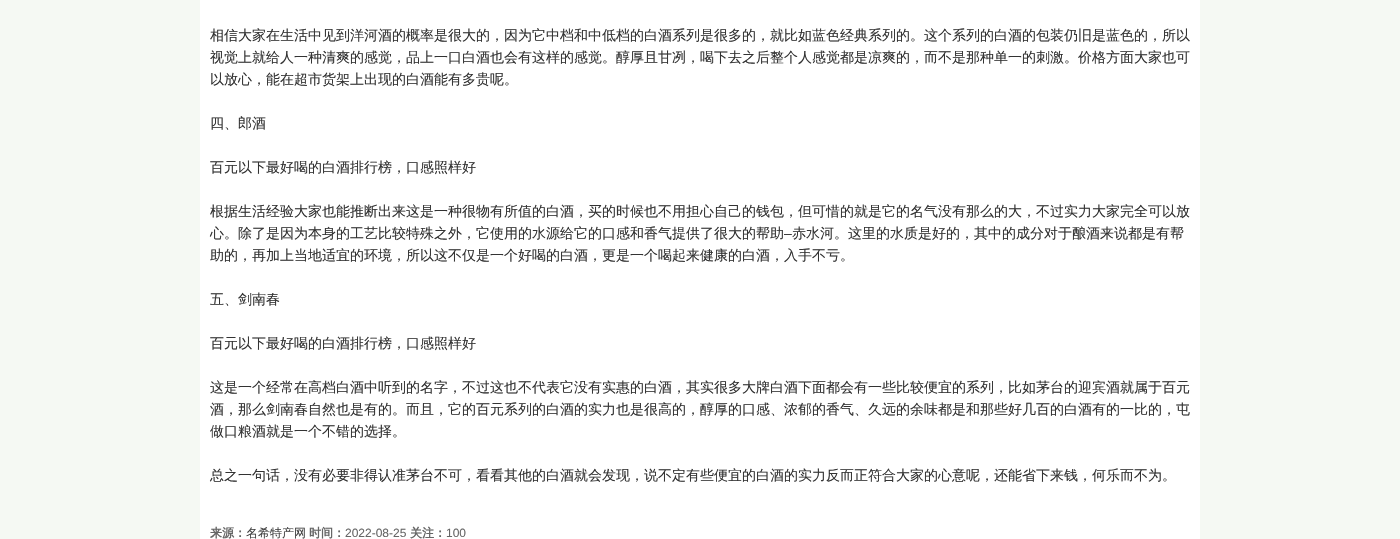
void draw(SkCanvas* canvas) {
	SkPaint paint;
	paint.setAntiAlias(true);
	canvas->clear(0xfff5f9f3);
	paint.setColor(0xffffffff);
	canvas->drawRect(SkRect::MakeXYWH(200, 0, 1000, 539), paint);
	SkFont f1(fontMgr->matchFamilyStyle("WenQuanYi Zen Hei", SkFontStyle(500, SkFontStyle::kNormal_Width, SkFontStyle::kUpright_Slant)), 14);
	f1.setSubpixel(true);
	paint.setColor(0xff333333);
	canvas->drawString("相信大家在生活中见到洋河酒的概率是很大的，因为它中档和中低档的白酒系列是很多的，就比如蓝色经典系列的。这个系列的白酒的包装仍旧是蓝色的，所以", 210, 40, f1, paint);
	canvas->drawString("视觉上就给人一种清爽的感觉，品上一口白酒也会有这样的感觉。醇厚且甘冽，喝下去之后整个人感觉都是凉爽的，而不是那种单一的刺激。价格方面大家也可", 210, 62, f1, paint);
	canvas->drawString("以放心，能在超市货架上出现的白酒能有多贵呢。", 210, 84, f1, paint);
	canvas->drawString("四、郎酒", 210, 128, f1, paint);
	canvas->drawString("百元以下最好喝的白酒排行榜，口感照样好", 210, 172, f1, paint);
	canvas->drawString("根据生活经验大家也能推断出来这是一种很物有所值的白酒，买的时候也不用担心自己的钱包，但可惜的就是它的名气没有那么的大，不过实力大家完全可以放", 210, 216, f1, paint);
	canvas->drawString("心。除了是因为本身的工艺比较特殊之外，它使用的水源给它的口感和香气提供了很大的帮助", 210, 238, f1, paint);
	SkFont f2(fontMgr->matchFamilyStyle("Liberation Sans", SkFontStyle::Normal()), 14);
	f2.setSubpixel(true);
	canvas->drawString("–", 784, 238, f2, paint);
	canvas->drawString("赤水河。这里的水质是好的，其中的成分对于酿酒来说都是有帮", 792, 238, f1, paint);
	canvas->drawString("助的，再加上当地适宜的环境，所以这不仅是一个好喝的白酒，更是一个喝起来健康的白酒，入手不亏。", 210, 260, f1, paint);
	canvas->drawString("五、剑南春", 210, 304, f1, paint);
	canvas->drawString("百元以下最好喝的白酒排行榜，口感照样好", 210, 348, f1, paint);
	canvas->drawString("这是一个经常在高档白酒中听到的名字，不过这也不代表它没有实惠的白酒，其实很多大牌白酒下面都会有一些比较便宜的系列，比如茅台的迎宾酒就属于百元", 210, 392, f1, paint);
	canvas->drawString("酒，那么剑南春自然也是有的。而且，它的百元系列的白酒的实力也是很高的，醇厚的口感、浓郁的香气、久远的余味都是和那些好几百的白酒有的一比的，屯", 210, 414, f1, paint);
	canvas->drawString("做口粮酒就是一个不错的选择。", 210, 436, f1, paint);
	canvas->drawString("总之一句话，没有必要非得认准茅台不可，看看其他的白酒就会发现，说不定有些便宜的白酒的实力反而正符合大家的心意呢，还能省下来钱，何乐而不为。", 210, 480, f1, paint);
	SkFont f3(fontMgr->matchFamilyStyle("WenQuanYi Zen Hei", SkFontStyle::Bold()), 12);
	f3.setSubpixel(true);
	paint.setColor(0xff666666);
	canvas->drawString("来源：", 210, 537, f3, paint);
	SkFont f4(fontMgr->matchFamilyStyle("WenQuanYi Zen Hei", SkFontStyle(500, SkFontStyle::kNormal_Width, SkFontStyle::kUpright_Slant)), 12);
	f4.setSubpixel(true);
	paint.setColor(0xff404040);
	canvas->drawString("名希特产网", 246, 537, f4, paint);
	paint.setColor(0xff666666);
	canvas->drawString("时间：", 309, 537, f3, paint);
	SkFont f5(fontMgr->matchFamilyStyle("Liberation Sans", SkFontStyle::Normal()), 12);
	f5.setSubpixel(true);
	canvas->drawString("2022-08-25", 345, 537, f5, paint);
	canvas->drawString("关注：", 410, 537, f3, paint);
	canvas->drawString("100", 446, 537, f5, paint);
}
